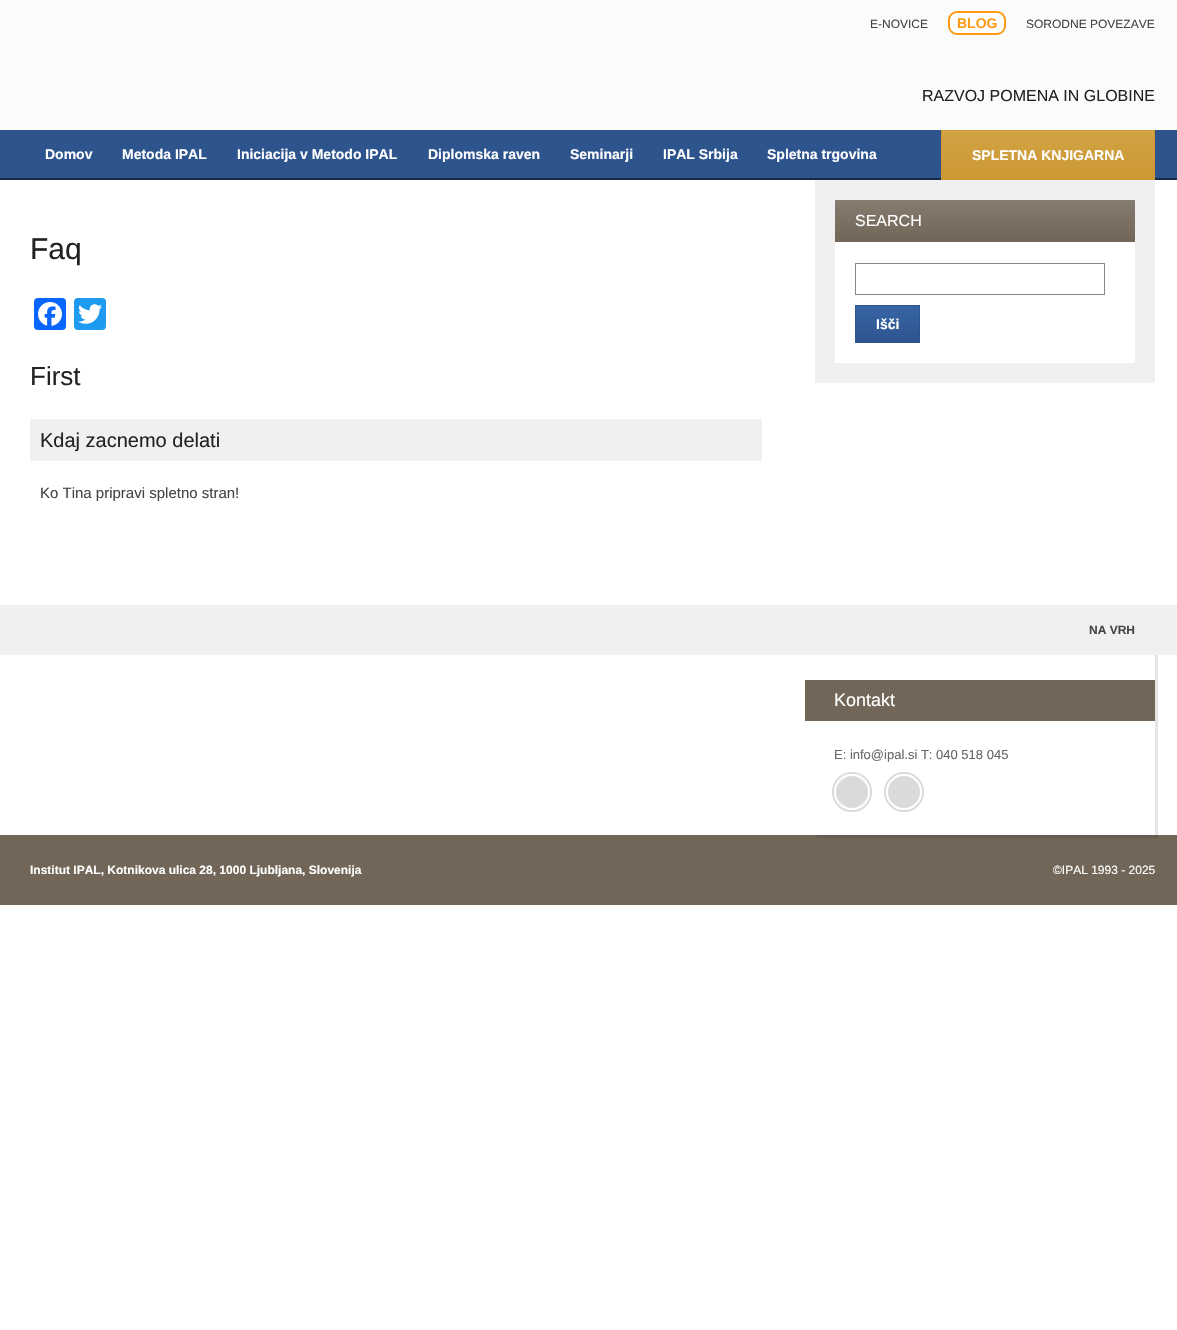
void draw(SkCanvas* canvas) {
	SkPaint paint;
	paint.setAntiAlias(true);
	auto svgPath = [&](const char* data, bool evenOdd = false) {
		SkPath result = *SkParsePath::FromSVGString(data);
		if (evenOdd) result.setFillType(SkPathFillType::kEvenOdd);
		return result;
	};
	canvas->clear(0xffffffff);
	paint.setColor(0xfffbfbfb);
	canvas->drawRect(SkRect::MakeXYWH(0, 0, 1177, 130), paint);
	SkFont f1(fontMgr->matchFamilyStyle("Liberation Sans", SkFontStyle::Normal()), 12);
	f1.setSubpixel(true);
	paint.setColor(0xff444444);
	canvas->drawString("E-NOVICE", 870, 28, f1, paint);
	paint.setColor(0xffffffff);
	canvas->drawRoundRect(SkRect::MakeXYWH(949, 12, 56, 22), 8, 8, paint);
	paint.setStroke(true);
	paint.setStrokeWidth(2);
	paint.setColor(0xfffd9a14);
	canvas->drawRoundRect(SkRect::MakeXYWH(949, 12, 56, 22), 8, 8, paint);
	SkFont f2(fontMgr->matchFamilyStyle("Liberation Sans", SkFontStyle::Bold()), 14);
	f2.setSubpixel(true);
	paint.setStroke(false);
	canvas->drawString("BLOG", 957, 28, f2, paint);
	paint.setColor(0xff444444);
	canvas->drawString("SORODNE POVEZAVE", 1026, 28, f1, paint);
	SkFont f3(fontMgr->matchFamilyStyle("Liberation Sans", SkFontStyle::Normal()), 16);
	f3.setSubpixel(true);
	paint.setColor(0xff222222);
	canvas->drawString("RAZVOJ POMENA IN GLOBINE", 922, 101, f3, paint);
	paint.setColor(0xff2d548d);
	canvas->drawRect(SkRect::MakeXYWH(0, 130, 1177, 48), paint);
	paint.setColor(0xff172a47);
	canvas->drawRect(SkRect::MakeXYWH(0, 178, 1177, 2), paint);
	paint.setColor(0xffffffff);
	canvas->drawString("Domov", 45, 159, f2, paint);
	canvas->drawString("Metoda IPAL", 122, 159, f2, paint);
	canvas->drawString("Iniciacija v Metodo IPAL", 237, 159, f2, paint);
	canvas->drawString("Diplomska raven", 428, 159, f2, paint);
	canvas->drawString("Seminarji", 570, 159, f2, paint);
	canvas->drawString("IPAL Srbija", 663, 159, f2, paint);
	canvas->drawString("Spletna trgovina", 767, 159, f2, paint);
	{
		const SkColor colors[] = {0xffd2a243, 0xffcc9933};
		const float stops[] = {0, 1};
		const SkPoint ends[] = {{1048, 131}, {1048, 179}};
		paint.setShader(SkGradientShader::MakeLinear(ends, colors, stops, 2, SkTileMode::kClamp));
		paint.setAlpha(255);
	}
	canvas->drawRect(SkRect::MakeXYWH(942, 131, 212, 48), paint);
	paint.setStroke(true);
	paint.setStrokeWidth(1);
	paint.setShader(nullptr);
	paint.setColor(0xffcc9933);
	canvas->drawRect(SkRect::MakeXYWH(941.5, 130.5, 213, 49), paint);
	paint.setStroke(false);
	paint.setColor(0xffffffff);
	canvas->drawString("SPLETNA KNJIGARNA", 972, 160, f2, paint);
	SkFont f4(fontMgr->matchFamilyStyle("Liberation Sans", SkFontStyle::Normal()), 30);
	f4.setSubpixel(true);
	paint.setColor(0xff222222);
	canvas->drawString("Faq", 30, 259, f4, paint);
	paint.setColor(0xff0866ff);
	canvas->drawRoundRect(SkRect::MakeXYWH(34, 298, 32, 32), 4, 4, paint);
	canvas->drawImageRect(SkImages::DeferredFromEncodedData(SkData::MakeFromFileName("img1.png")), SkRect::MakeXYWH(38, 302, 24, 24), SkSamplingOptions());
	paint.setColor(0xff1d9bf0);
	canvas->drawRoundRect(SkRect::MakeXYWH(74, 298, 32, 32), 4, 4, paint);
	canvas->drawImageRect(SkImages::DeferredFromEncodedData(SkData::MakeFromFileName("img2.png")), SkRect::MakeXYWH(78, 304, 24, 20), SkSamplingOptions());
	SkFont f5(fontMgr->matchFamilyStyle("Liberation Sans", SkFontStyle::Normal()), 26);
	f5.setSubpixel(true);
	paint.setColor(0xff222222);
	canvas->drawString("First", 30, 385, f5, paint);
	paint.setColor(0xfff0f0f0);
	canvas->drawRect(SkRect::MakeXYWH(30, 419, 732, 42), paint);
	SkFont f6(fontMgr->matchFamilyStyle("Liberation Sans", SkFontStyle::Normal()), 20);
	f6.setSubpixel(true);
	paint.setColor(0xff222222);
	canvas->drawString("Kdaj zacnemo delati", 40, 447, f6, paint);
	SkFont f7(fontMgr->matchFamilyStyle("Liberation Sans", SkFontStyle::Normal()), 15);
	f7.setSubpixel(true);
	paint.setColor(0xff444444);
	canvas->drawString("Ko Tina pripravi spletno stran!", 40, 498, f7, paint);
	paint.setColor(0xfff0f0f0);
	canvas->drawRect(SkRect::MakeXYWH(815, 180, 340, 203), paint);
	paint.setColor(0xffffffff);
	canvas->drawRect(SkRect::MakeXYWH(835, 242, 300, 121), paint);
	{
		const SkColor colors[] = {0xff867c6f, 0xff716658};
		const float stops[] = {0, 1};
		const SkPoint ends[] = {{985, 200}, {985, 242}};
		paint.setShader(SkGradientShader::MakeLinear(ends, colors, stops, 2, SkTileMode::kClamp));
		paint.setAlpha(255);
	}
	canvas->drawRect(SkRect::MakeXYWH(835, 200, 300, 42), paint);
	paint.setShader(nullptr);
	paint.setColor(0xffffffff);
	canvas->drawString("SEARCH", 855, 226, f3, paint);
	paint.setStroke(true);
	paint.setColor(0xff888888);
	canvas->drawRect(SkRect::MakeXYWH(855.5, 263.5, 249, 31), paint);
	paint.setStroke(false);
	{
		const SkColor colors[] = {0xff3865a6, 0xff2d548d};
		const float stops[] = {0, 1};
		const SkPoint ends[] = {{888, 306}, {888, 342}};
		paint.setShader(SkGradientShader::MakeLinear(ends, colors, stops, 2, SkTileMode::kClamp));
		paint.setAlpha(255);
	}
	canvas->drawRect(SkRect::MakeXYWH(856, 306, 63, 36), paint);
	paint.setStroke(true);
	paint.setShader(nullptr);
	paint.setColor(0xff2d548d);
	canvas->drawRect(SkRect::MakeXYWH(855.5, 305.5, 64, 37), paint);
	paint.setStroke(false);
	paint.setColor(0xffffffff);
	canvas->drawString("Išči", 876, 329, f2, paint);
	paint.setColor(0xff716658);
	canvas->drawRect(SkRect::MakeXYWH(0, 835, 1177, 70), paint);
	paint.setColor(0x1a000000);
	canvas->drawPath(svgPath("M817 835V838H1158V653H1155V835Z"), paint);
	paint.setColor(0xfff0f0f0);
	canvas->drawRect(SkRect::MakeXYWH(0, 605, 1177, 50), paint);
	SkFont f8(fontMgr->matchFamilyStyle("Liberation Sans", SkFontStyle::Bold()), 12);
	f8.setSubpixel(true);
	paint.setColor(0xff444444);
	canvas->drawString("NA VRH", 1089, 634, f8, paint);
	paint.setColor(0xff716658);
	canvas->drawRect(SkRect::MakeXYWH(805, 680, 350, 41), paint);
	SkFont f9(fontMgr->matchFamilyStyle("Liberation Sans", SkFontStyle::Normal()), 18);
	f9.setSubpixel(true);
	paint.setColor(0xffffffff);
	canvas->drawString("Kontakt", 834, 706, f9, paint);
	SkFont f10(fontMgr->matchFamilyStyle("Liberation Sans", SkFontStyle::Normal()), 13);
	f10.setSubpixel(true);
	paint.setColor(0xff666666);
	canvas->drawString("E: info@ipal.si T: 040 518 045", 834, 759, f10, paint);
	paint.setStroke(true);
	paint.setStrokeWidth(2);
	paint.setColor(0xffdadada);
	canvas->drawCircle(852, 792, 19, paint);
	paint.setStroke(false);
	canvas->drawCircle(852, 792, 17, paint);
	paint.setStroke(true);
	paint.setColor(0xffffffff);
	canvas->drawCircle(852, 792, 17, paint);
	paint.setColor(0xffdadada);
	canvas->drawCircle(904, 792, 19, paint);
	paint.setStroke(false);
	canvas->drawCircle(904, 792, 17, paint);
	paint.setStroke(true);
	paint.setColor(0xffffffff);
	canvas->drawCircle(904, 792, 17, paint);
	paint.setStroke(false);
	canvas->drawString("Institut IPAL, Kotnikova ulica 28, 1000 Ljubljana, Slovenija", 30, 874, f8, paint);
	canvas->drawString("©IPAL 1993 - 2025", 1053, 874, f1, paint);
}
